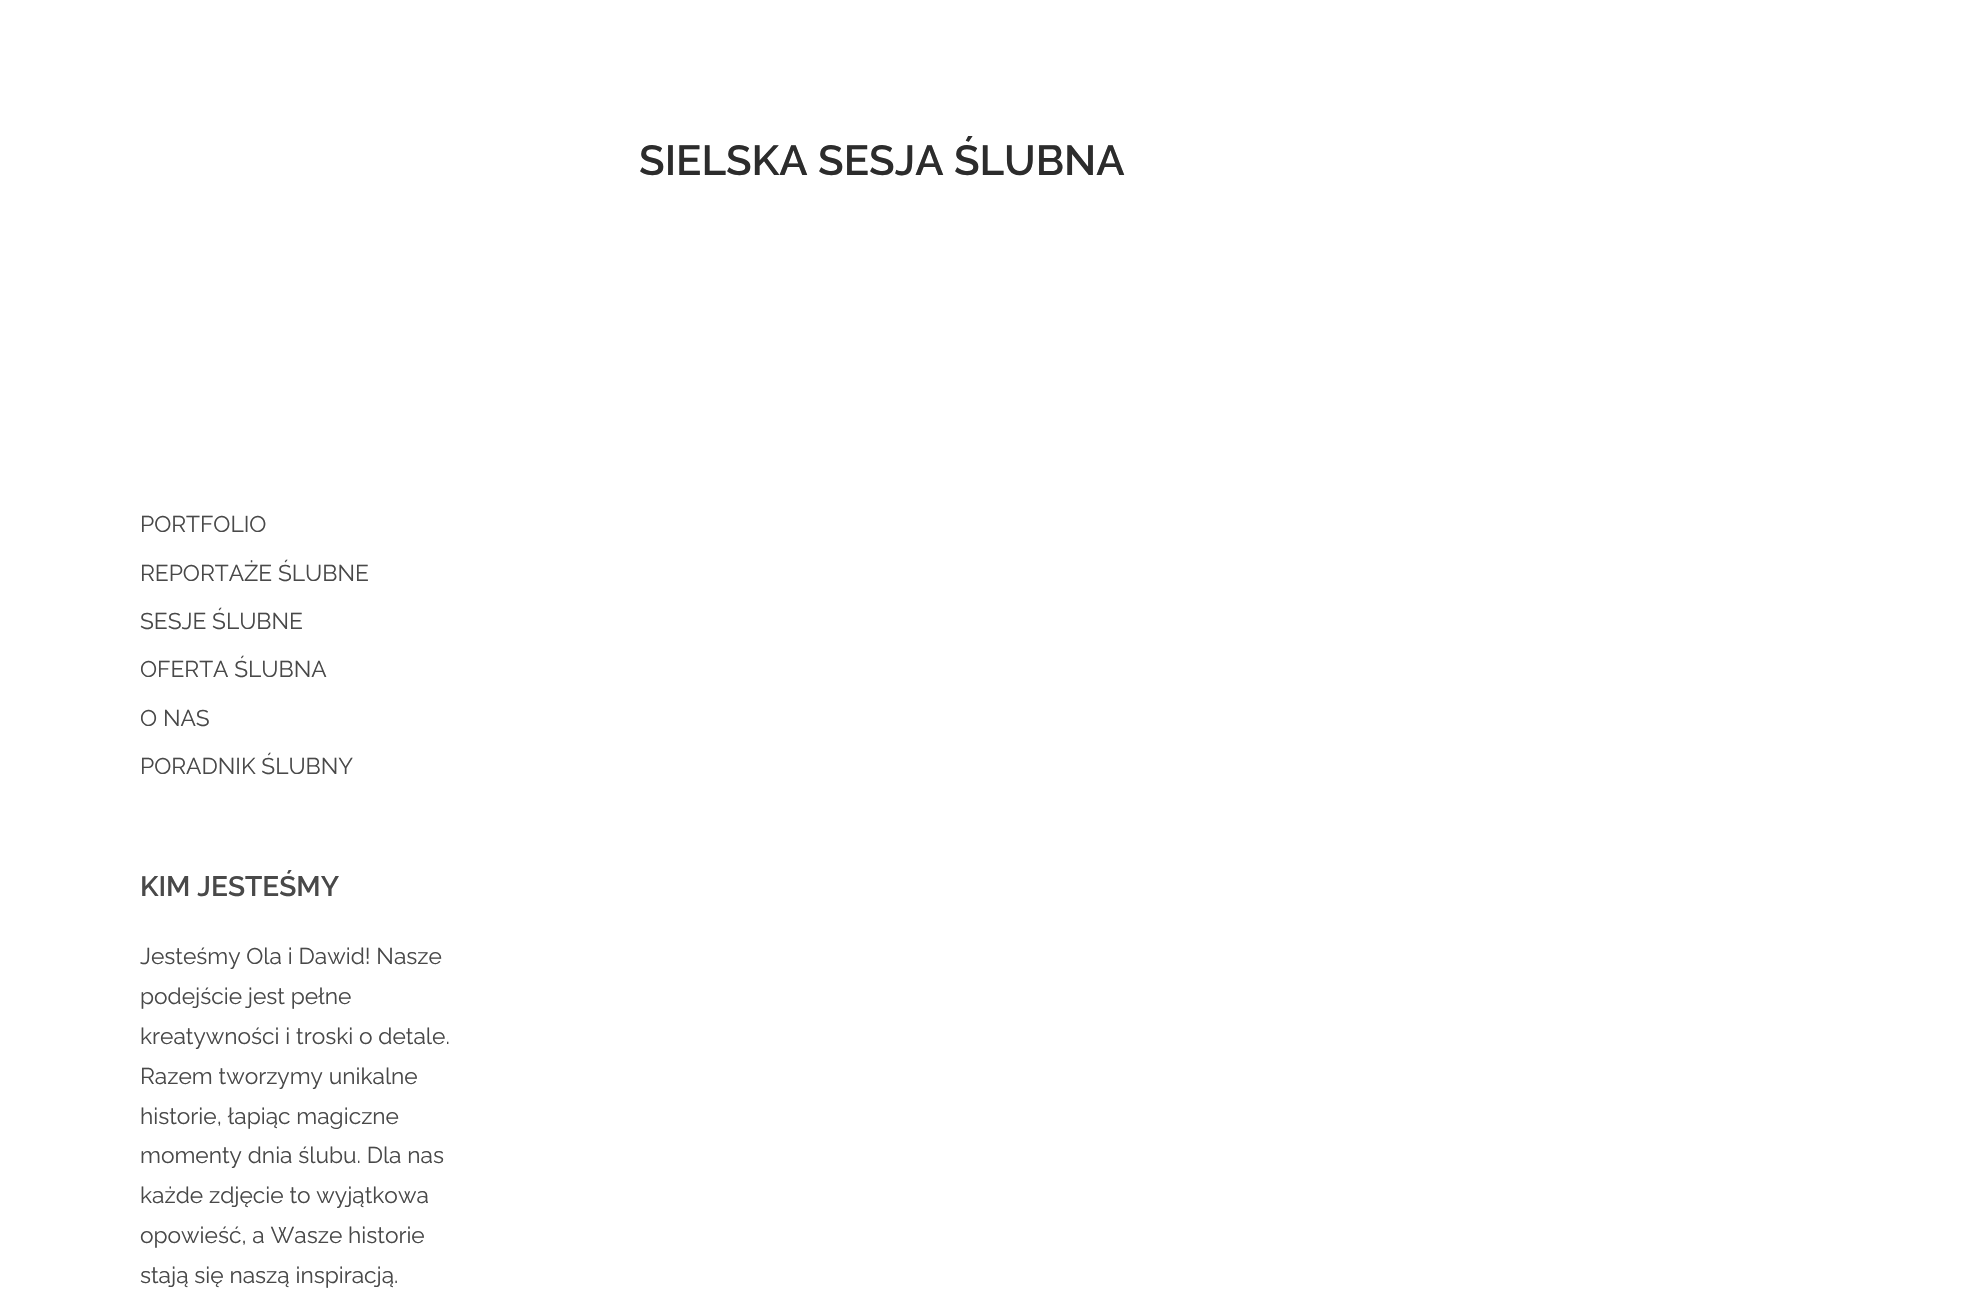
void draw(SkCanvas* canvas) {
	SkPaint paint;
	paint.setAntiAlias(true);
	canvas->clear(0xffffffff);
	SkFont f1(fontMgr->matchFamilyStyle("Raleway", SkFontStyle(600, SkFontStyle::kNormal_Width, SkFontStyle::kUpright_Slant)), 42);
	f1.setSubpixel(true);
	paint.setColor(0xff2c2c2c);
	canvas->drawString("SIELSKA SESJA ŚLUBNA", 639, 175, f1, paint);
	SkFont f2(fontMgr->matchFamilyStyle("Raleway", SkFontStyle::Normal()), 22.75);
	f2.setSubpixel(true);
	paint.setColor(0xff494949);
	canvas->drawString("PORTFOLIO", 140, 532, f2, paint);
	canvas->drawString("REPORTAŻE ŚLUBNE", 140, 581, f2, paint);
	canvas->drawString("SESJE ŚLUBNE", 140, 629, f2, paint);
	canvas->drawString("OFERTA ŚLUBNA", 140, 677, f2, paint);
	canvas->drawString("O NAS", 140, 726, f2, paint);
	canvas->drawString("PORADNIK ŚLUBNY", 140, 774, f2, paint);
	SkFont f3(fontMgr->matchFamilyStyle("Raleway", SkFontStyle(600, SkFontStyle::kNormal_Width, SkFontStyle::kUpright_Slant)), 28);
	f3.setSubpixel(true);
	canvas->drawString("KIM JESTEŚMY", 140, 896, f3, paint);
	canvas->drawString("Jesteśmy Ola i Dawid! Nasze", 140, 964, f2, paint);
	canvas->drawString("podejście jest pełne", 140, 1004, f2, paint);
	canvas->drawString("kreatywności i troski o detale.", 140, 1044, f2, paint);
	canvas->drawString("Razem tworzymy unikalne", 140, 1084, f2, paint);
	canvas->drawString("historie, łapiąc magiczne", 140, 1124, f2, paint);
	canvas->drawString("momenty dnia ślubu. Dla nas", 140, 1163, f2, paint);
	canvas->drawString("każde zdjęcie to wyjątkowa", 140, 1203, f2, paint);
	canvas->drawString("opowieść, a Wasze historie", 140, 1243, f2, paint);
	canvas->drawString("stają się naszą inspiracją.", 140, 1283, f2, paint);
}
